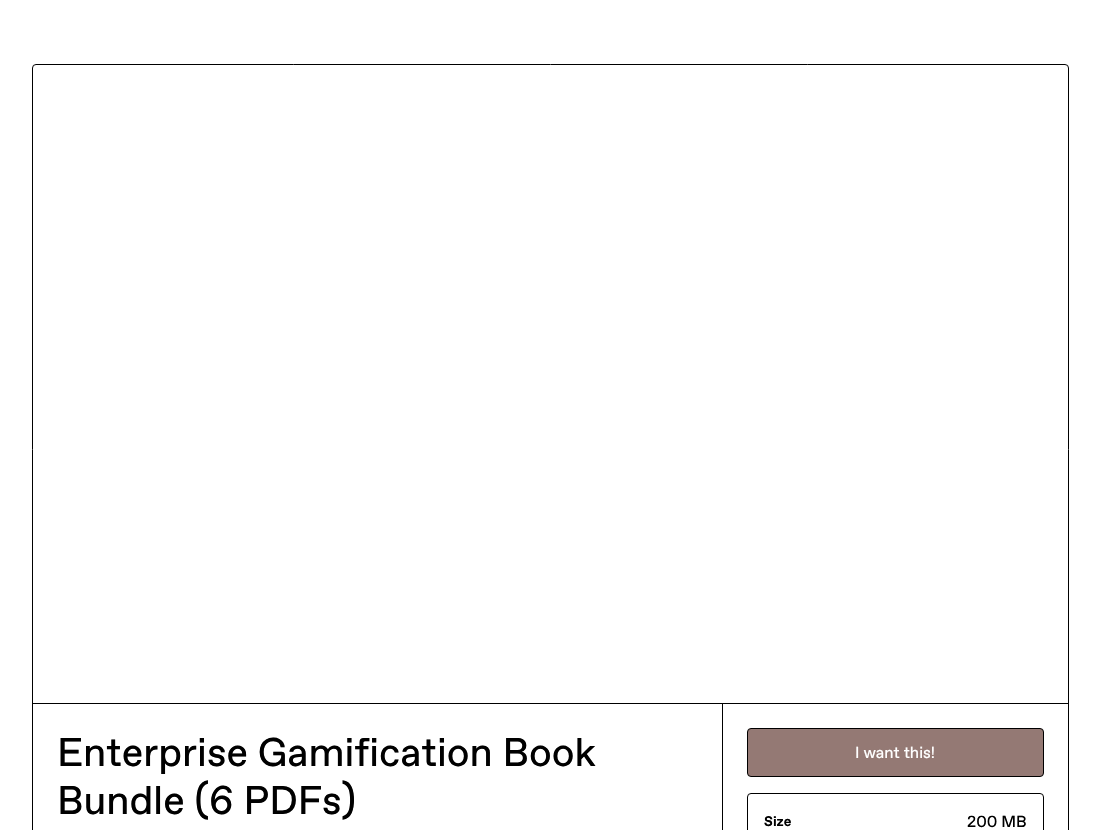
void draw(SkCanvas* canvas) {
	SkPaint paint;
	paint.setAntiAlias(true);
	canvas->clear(0xffffffff);
	paint.setStroke(true);
	paint.setStrokeWidth(1);
	paint.setColor(0xff000000);
	canvas->drawRoundRect(SkRect::MakeXYWH(32.5, 64.5, 1036, 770), 3.5, 3.5, paint);
	paint.setStroke(false);
	canvas->drawRect(SkRect::MakeXYWH(33, 703, 1035, 1), paint);
	canvas->drawRect(SkRect::MakeXYWH(722, 704, 1, 126), paint);
	SkFont f1(fontMgr->matchFamilyStyle("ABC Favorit", SkFontStyle::Normal()), 40);
	f1.setSubpixel(true);
	canvas->drawString("Enterprise Gamification Book", 57, 766, f1, paint);
	canvas->drawString("Bundle (6 PDFs)", 57, 814, f1, paint);
	paint.setColor(0xff947974);
	canvas->drawRoundRect(SkRect::MakeXYWH(747.5, 728.5, 296, 48), 3.5, 3.5, paint);
	paint.setStroke(true);
	paint.setColor(0xff000000);
	canvas->drawRoundRect(SkRect::MakeXYWH(747.5, 728.5, 296, 48), 3.5, 3.5, paint);
	SkFont f2(fontMgr->matchFamilyStyle("ABC Favorit", SkFontStyle::Normal()), 16);
	f2.setSubpixel(true);
	paint.setStroke(false);
	paint.setColor(0xffffffff);
	canvas->drawString("I want this!", 855, 758, f2, paint);
	paint.setStroke(true);
	paint.setColor(0xff000000);
	canvas->drawRoundRect(SkRect::MakeXYWH(747.5, 793.5, 296, 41), 3.5, 3.5, paint);
	SkFont f3(fontMgr->matchFamilyStyle("ABC Favorit", SkFontStyle::Bold()), 14);
	f3.setSubpixel(true);
	paint.setStroke(false);
	canvas->drawString("Size", 764, 826, f3, paint);
	canvas->drawString("200 MB", 967, 827, f2, paint);
}
